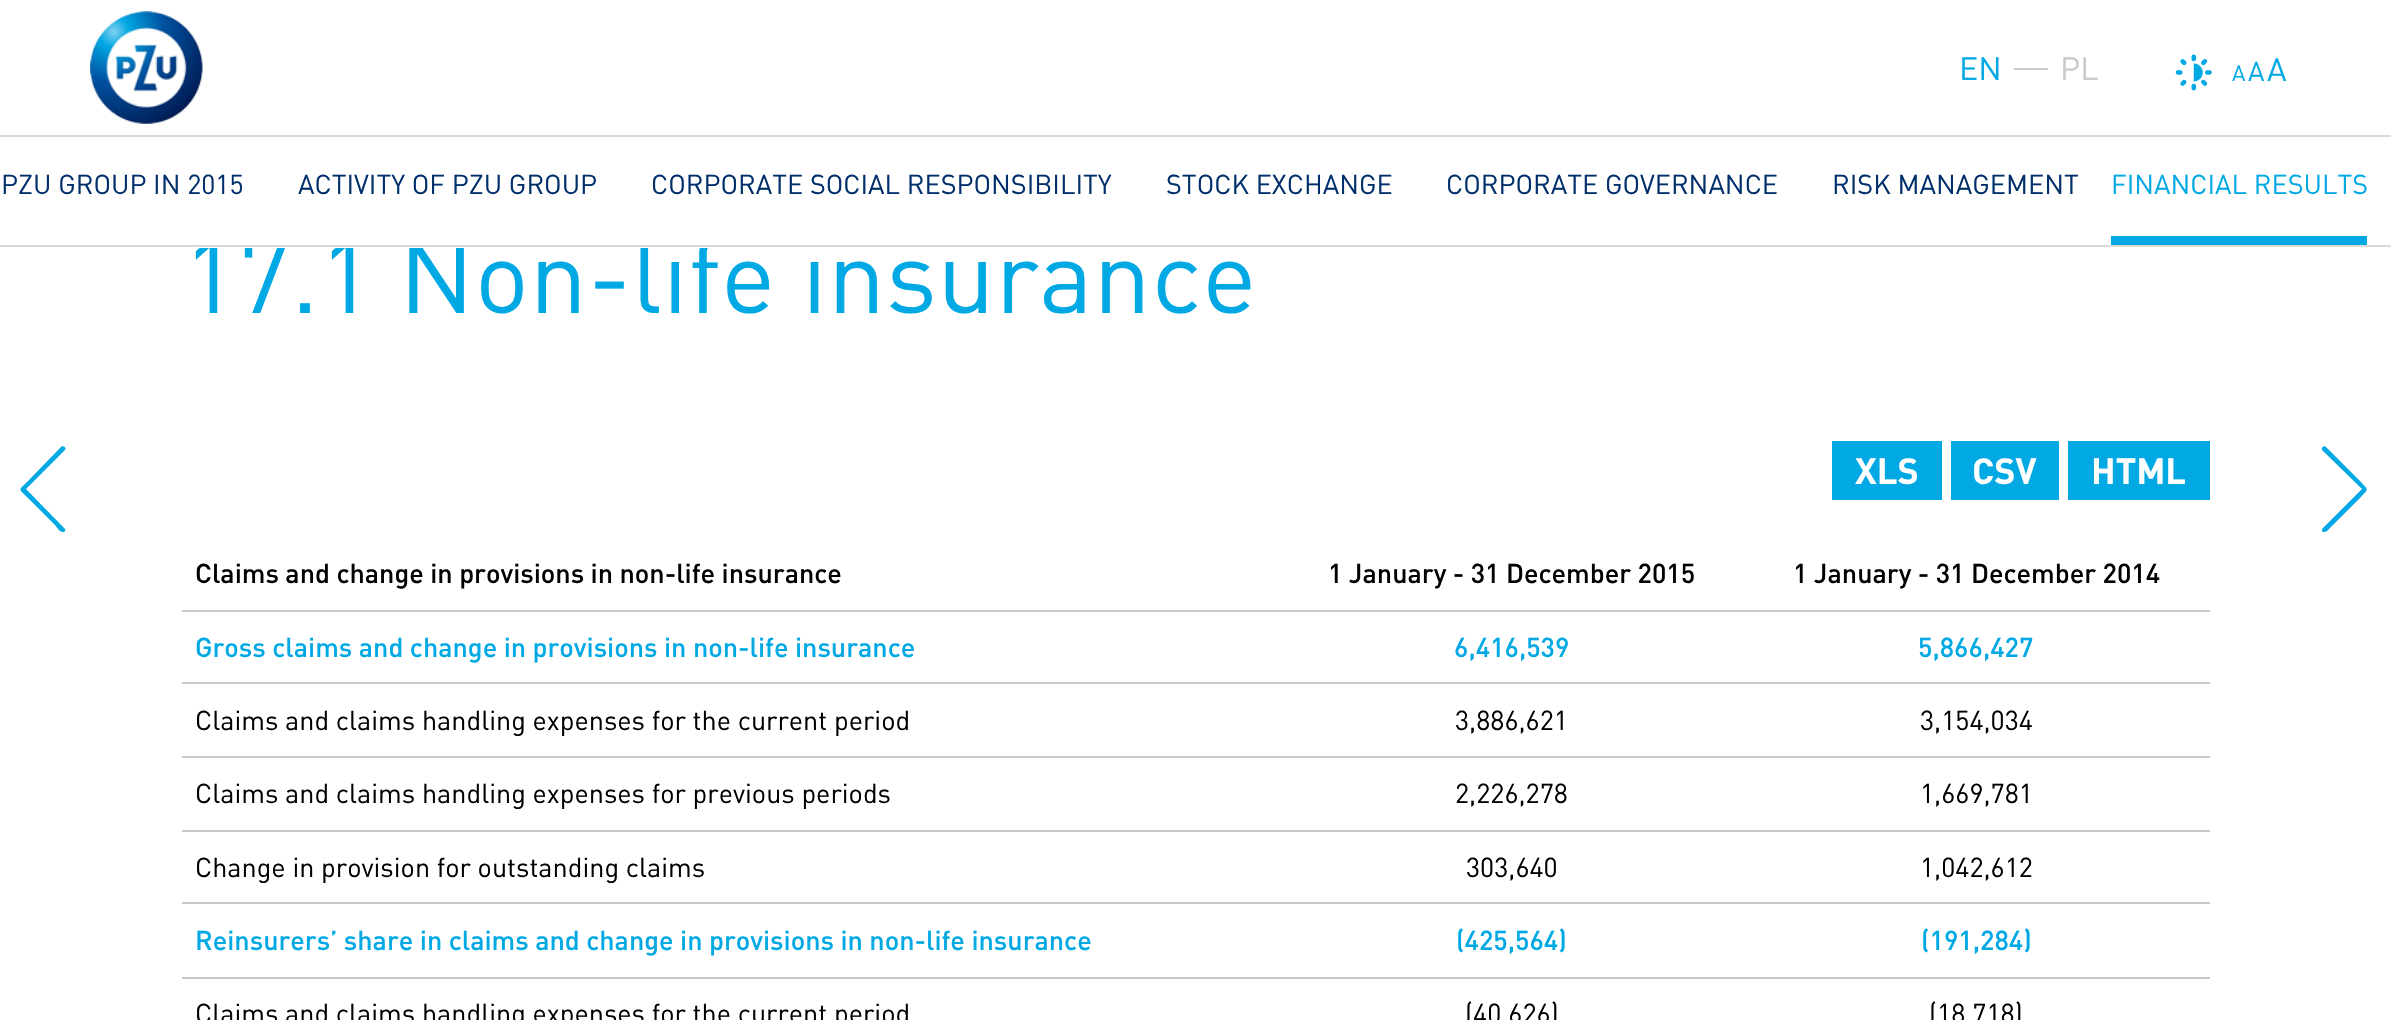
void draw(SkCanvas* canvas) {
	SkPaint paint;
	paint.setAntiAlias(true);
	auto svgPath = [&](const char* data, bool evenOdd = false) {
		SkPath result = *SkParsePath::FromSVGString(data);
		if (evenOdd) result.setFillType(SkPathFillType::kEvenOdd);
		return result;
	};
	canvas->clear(0xffffffff);
	paint.setColor(0xffdadada);
	canvas->drawRect(SkRect::MakeXYWH(0, 135, 2391, 2), paint);
	canvas->drawImageRect(SkImages::DeferredFromEncodedData(SkData::MakeFromFileName("img1.png")), SkRect::MakeXYWH(90, 11, 113, 113), SkSamplingOptions());
	SkFont f1(fontMgr->matchFamilyStyle("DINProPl", SkFontStyle::Normal()), 32);
	f1.setSubpixel(true);
	paint.setColor(0xff00a8e4);
	canvas->drawString("EN", 1959, 80, f1, paint);
	paint.setColor(0xffcacaca);
	canvas->drawRect(SkRect::MakeXYWH(2014, 68, 34, 2), paint);
	canvas->drawString("PL", 2060, 80, f1, paint);
	canvas->drawImageRect(SkImages::DeferredFromEncodedData(SkData::MakeFromFileName("img2.png")), SkRect::MakeXYWH(2175, 54, 37, 37), SkSamplingOptions());
	SkFont f2(fontMgr->matchFamilyStyle("DINProPl", SkFontStyle::Normal()), 22);
	f2.setSubpixel(true);
	paint.setColor(0xff00a8e4);
	canvas->drawString("A", 2232, 81, f2, paint);
	SkFont f3(fontMgr->matchFamilyStyle("DINProPl", SkFontStyle::Normal()), 27);
	f3.setSubpixel(true);
	canvas->drawString("A", 2248, 81, f3, paint);
	canvas->drawString("A", 2267, 81, f1, paint);
	SkFont f4(fontMgr->matchFamilyStyle("DINProPl", SkFontStyle::Normal()), 103.5);
	f4.setSubpixel(true);
	canvas->drawString("17.1 Non-life insurance", 183, 313, f4, paint);
	paint.setColor(0xffffffff);
	canvas->drawRect(SkRect::MakeXYWH(200, 239, 620, 9), paint);
	paint.setColor(0xffdadada);
	canvas->drawRect(SkRect::MakeXYWH(0, 245, 2391, 2), paint);
	paint.setColor(0xff002f6b);
	canvas->drawString("PZU GROUP IN 2015", 1, 194, f3, paint);
	canvas->drawString("ACTIVITY OF PZU GROUP", 298, 194, f3, paint);
	canvas->drawString("CORPORATE SOCIAL RESPONSIBILITY", 651, 194, f3, paint);
	canvas->drawString("STOCK EXCHANGE", 1166, 194, f3, paint);
	canvas->drawString("CORPORATE GOVERNANCE", 1446, 194, f3, paint);
	canvas->drawString("RISK MANAGEMENT", 1832, 194, f3, paint);
	paint.setColor(0xff00a8e4);
	canvas->drawRect(SkRect::MakeXYWH(2111, 236, 256, 9), paint);
	canvas->drawString("FINANCIAL RESULTS", 2111, 194, f3, paint);
	canvas->drawRect(SkRect::MakeXYWH(1832, 441, 110, 59), paint);
	SkFont f5(fontMgr->matchFamilyStyle("DINProPl", SkFontStyle::Bold()), 36);
	f5.setSubpixel(true);
	paint.setColor(0xffffffff);
	canvas->drawString("XLS", 1855, 484, f5, paint);
	paint.setColor(0xff00a8e4);
	canvas->drawRect(SkRect::MakeXYWH(1951, 441, 108, 59), paint);
	paint.setColor(0xffffffff);
	canvas->drawString("CSV", 1972, 484, f5, paint);
	paint.setColor(0xff00a8e4);
	canvas->drawRect(SkRect::MakeXYWH(2068, 441, 142, 59), paint);
	paint.setColor(0xffffffff);
	canvas->drawString("HTML", 2091, 484, f5, paint);
	SkFont f6(fontMgr->matchFamilyStyle("DINProPl", SkFontStyle(500, SkFontStyle::kNormal_Width, SkFontStyle::kUpright_Slant)), 27);
	f6.setSubpixel(true);
	paint.setColor(0xff000000);
	canvas->drawString("Claims and change in provisions in non-life insurance", 195, 583, f6, paint);
	canvas->drawString("1 January - 31 December 2015", 1328, 583, f6, paint);
	paint.setColor(0xffc8c8c8);
	canvas->drawRect(SkRect::MakeXYWH(182, 610, 2028, 2), paint);
	paint.setColor(0xff000000);
	canvas->drawString("1 January - 31 December 2014", 1793, 583, f6, paint);
	paint.setColor(0xff00a8e4);
	canvas->drawString("Gross claims and change in provisions in non-life insurance", 195, 657, f6, paint);
	canvas->drawString("6,416,539", 1454, 657, f6, paint);
	paint.setColor(0xffc8c8c8);
	canvas->drawRect(SkRect::MakeXYWH(182, 682, 2028, 2), paint);
	paint.setColor(0xff00a8e4);
	canvas->drawString("5,866,427", 1918, 657, f6, paint);
	paint.setColor(0xff000000);
	canvas->drawString("Claims and claims handling expenses for the current period", 195, 730, f3, paint);
	canvas->drawString("3,886,621", 1455, 730, f3, paint);
	paint.setColor(0xffc8c8c8);
	canvas->drawRect(SkRect::MakeXYWH(182, 756, 2028, 2), paint);
	paint.setColor(0xff000000);
	canvas->drawString("3,154,034", 1920, 730, f3, paint);
	canvas->drawString("Claims and claims handling expenses for previous periods", 195, 803, f3, paint);
	canvas->drawString("2,226,278", 1455, 803, f3, paint);
	paint.setColor(0xffc8c8c8);
	canvas->drawRect(SkRect::MakeXYWH(182, 830, 2028, 2), paint);
	paint.setColor(0xff000000);
	canvas->drawString("1,669,781", 1920, 803, f3, paint);
	canvas->drawString("Change in provision for outstanding claims", 195, 877, f3, paint);
	canvas->drawString("303,640", 1466, 877, f3, paint);
	paint.setColor(0xffc8c8c8);
	canvas->drawRect(SkRect::MakeXYWH(182, 902, 2028, 2), paint);
	paint.setColor(0xff000000);
	canvas->drawString("1,042,612", 1920, 877, f3, paint);
	paint.setColor(0xff00a8e4);
	canvas->drawString("Reinsurers’ share in claims and change in provisions in non-life insurance", 195, 950, f6, paint);
	canvas->drawString("(425,564)", 1456, 950, f6, paint);
	paint.setColor(0xffc8c8c8);
	canvas->drawRect(SkRect::MakeXYWH(182, 977, 2028, 2), paint);
	paint.setColor(0xff00a8e4);
	canvas->drawString("(191,284)", 1921, 950, f6, paint);
	paint.setColor(0xff000000);
	canvas->drawString("Claims and claims handling expenses for the current period", 195, 1023, f3, paint);
	canvas->drawString("(40,626)", 1465, 1023, f3, paint);
	canvas->drawString("(18,718)", 1929, 1023, f3, paint);
	paint.setColor(0xff00a8e4);
	canvas->drawPath(svgPath("M63 532C65 532 66 530 65 529L26 489L65 450C67 448 63 445 61 447L28 481C18 491 18 488 28 498L55 525C57 527 59 532 63 532Z"), paint);
	canvas->drawPath(svgPath("M2324 532C2322 532 2321 530 2323 528L2362 489L2322 450C2321 448 2324 445 2326 447L2360 481C2369 491 2369 488 2360 498L2333 525C2330 527 2328 532 2324 532Z"), paint);
}
